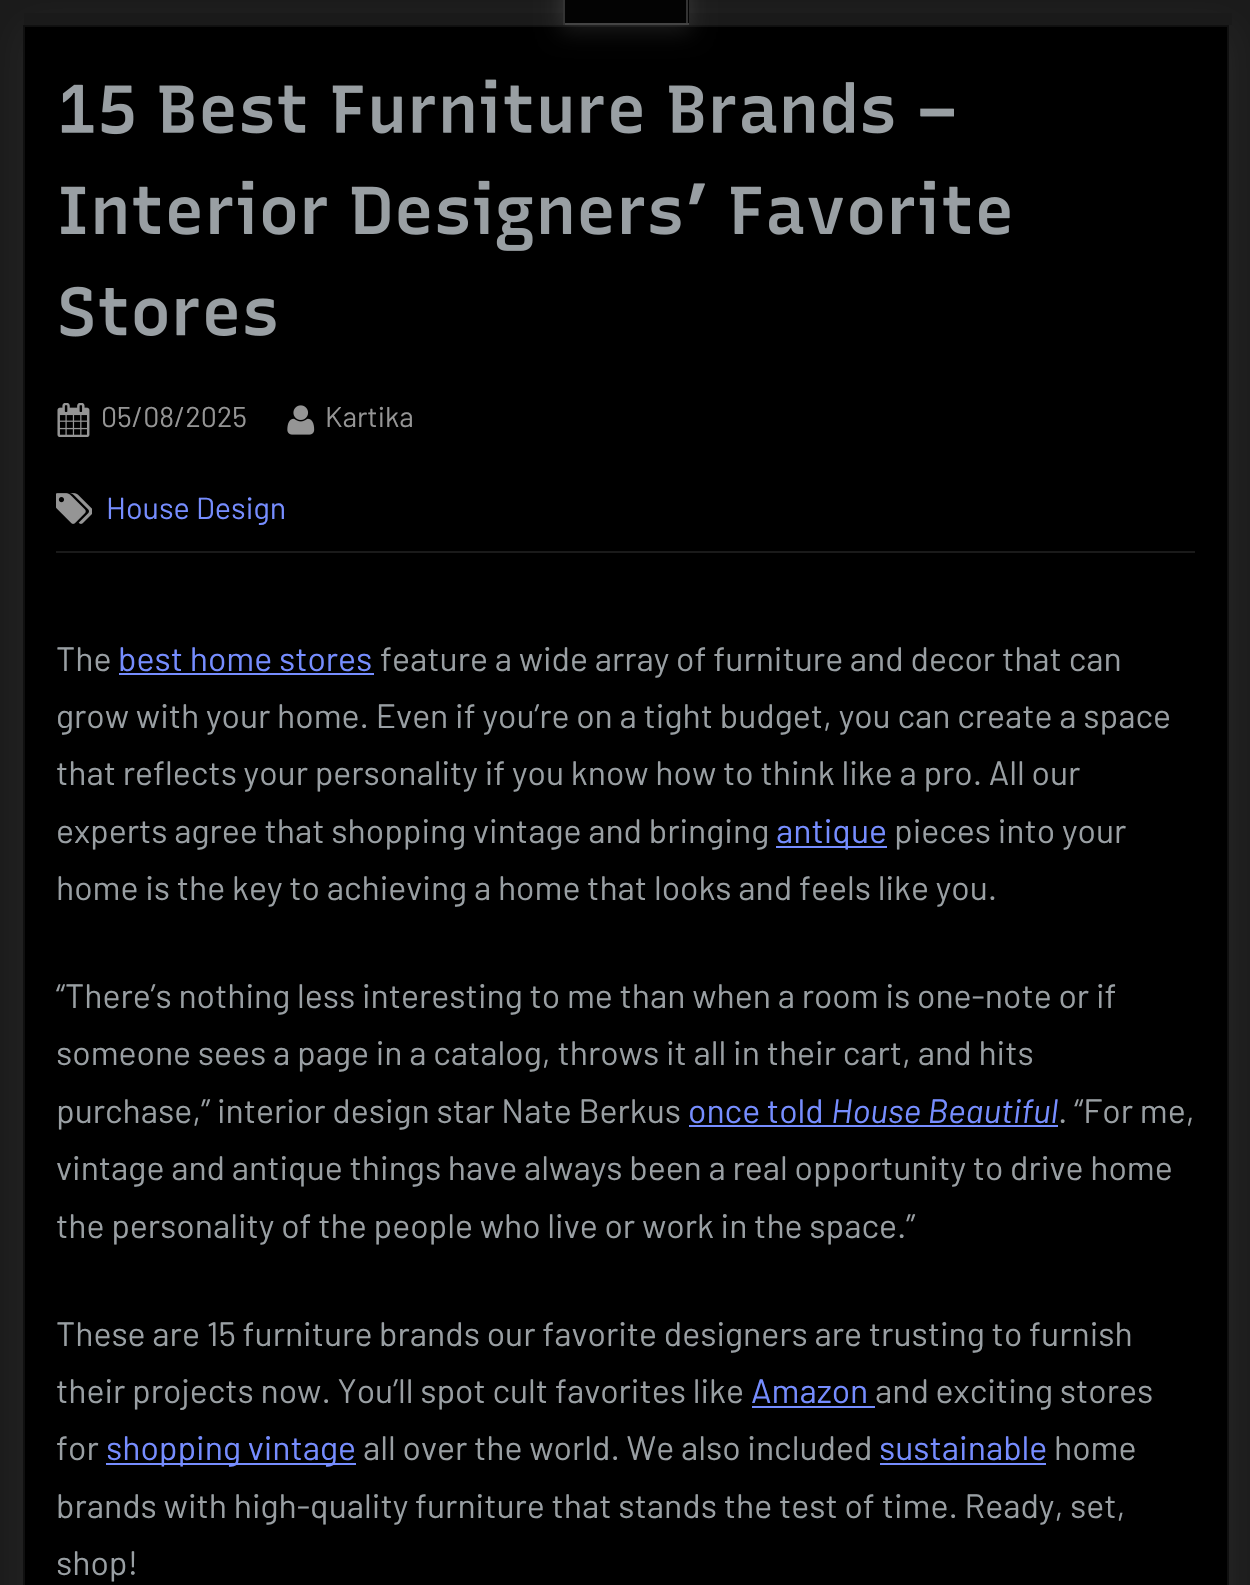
void draw(SkCanvas* canvas) {
	SkPaint paint;
	paint.setAntiAlias(true);
	auto svgPath = [&](const char* data, bool evenOdd = false) {
		SkPath result = *SkParsePath::FromSVGString(data);
		if (evenOdd) result.setFillType(SkPathFillType::kEvenOdd);
		return result;
	};
	canvas->clear(0xff1a1a1a);
	paint.setColor(0x0fffffff);
	paint.setMaskFilter(SkMaskFilter::MakeBlur(kNormal_SkBlurStyle, 18));
	canvas->drawRect(SkRect::MakeXYWH(25, 29, 1206, 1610), paint);
	paint.setMaskFilter(nullptr);
	paint.setColor(0xff1a1a1a);
	canvas->drawRect(SkRect::MakeXYWH(24, 13, 1208, 12), paint);
	paint.setColor(0xff000000);
	canvas->drawRect(SkRect::MakeXYWH(24, 26, 1204, 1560), paint);
	paint.setStroke(true);
	paint.setStrokeWidth(2);
	paint.setColor(0xff101010);
	canvas->drawRect(SkRect::MakeXYWH(24, 26, 1204, 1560), paint);
	canvas->save();
	canvas->clipPath(svgPath("M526 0H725V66H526ZM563-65H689V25H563Z", true), true);
	paint.setStroke(false);
	paint.setColor(0x1affffff);
	paint.setMaskFilter(SkMaskFilter::MakeBlur(kNormal_SkBlurStyle, 11));
	canvas->drawRect(SkRect::MakeXYWH(560, -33, 131, 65), paint);
	paint.setMaskFilter(nullptr);
	canvas->restore();
	paint.setColor(0xe6000000);
	canvas->drawRect(SkRect::MakeXYWH(565, 0, 124, 23), paint);
	paint.setColor(0xff333333);
	canvas->drawRect(SkRect::MakeXYWH(686, 0, 2, 25), paint);
	paint.setColor(0xff444444);
	canvas->drawRect(SkRect::MakeXYWH(563, 23, 126, 2), paint);
	paint.setColor(0xff333333);
	canvas->drawRect(SkRect::MakeXYWH(563, 0, 2, 25), paint);
	canvas->drawImageRect(SkImages::DeferredFromEncodedData(SkData::MakeFromFileName("img1.png")), SkRect::MakeXYWH(61, 79, 893, 56), SkSamplingOptions());
	canvas->drawImageRect(SkImages::DeferredFromEncodedData(SkData::MakeFromFileName("img2.png")), SkRect::MakeXYWH(61, 180, 949, 71), SkSamplingOptions());
	canvas->drawImageRect(SkImages::DeferredFromEncodedData(SkData::MakeFromFileName("img3.png")), SkRect::MakeXYWH(60, 286, 216, 51), SkSamplingOptions());
	canvas->drawImageRect(SkImages::DeferredFromEncodedData(SkData::MakeFromFileName("img4.png")), SkRect::MakeXYWH(57, 403, 33, 34), SkSamplingOptions());
	SkFont f1(fontMgr->matchFamilyStyle("Barlow", SkFontStyle::Normal()), 28.5);
	f1.setSubpixel(true);
	paint.setColor(0xff959595);
	canvas->drawString("05/08/2025", 101, 427, f1, paint);
	canvas->drawImageRect(SkImages::DeferredFromEncodedData(SkData::MakeFromFileName("img5.png")), SkRect::MakeXYWH(287, 405, 28, 30), SkSamplingOptions());
	canvas->drawString("Kartika", 325, 427, f1, paint);
	canvas->drawImageRect(SkImages::DeferredFromEncodedData(SkData::MakeFromFileName("img6.png")), SkRect::MakeXYWH(56, 493, 36, 31), SkSamplingOptions());
	SkFont f2(fontMgr->matchFamilyStyle("Barlow", SkFontStyle::Normal()), 30.5);
	f2.setSubpixel(true);
	paint.setColor(0xff768dff);
	canvas->drawString("House Design", 106, 519, f2, paint);
	paint.setColor(0xff1a1a1a);
	canvas->drawRect(SkRect::MakeXYWH(56, 551, 1139, 2), paint);
	SkFont f3(fontMgr->matchFamilyStyle("Barlow", SkFontStyle::Normal()), 33.75);
	f3.setSubpixel(true);
	paint.setColor(0xff999fa3);
	canvas->drawString("The", 56, 671, f3, paint);
	paint.setColor(0xff768dff);
	canvas->drawString("best home stores", 118, 671, f3, paint);
	canvas->drawRect(SkRect::MakeXYWH(119, 673, 255, 2), paint);
	paint.setColor(0xff999fa3);
	canvas->drawString("feature a wide array of furniture and decor that can", 380, 671, f3, paint);
	canvas->drawString("grow with your home. Even if you’re on a tight budget, you can create a space", 56, 728, f3, paint);
	canvas->drawString("that reflects your personality if you know how to think like a pro. All our", 56, 785, f3, paint);
	canvas->drawString("experts agree that shopping vintage and bringing", 56, 843, f3, paint);
	paint.setColor(0xff768dff);
	canvas->drawRect(SkRect::MakeXYWH(776, 846, 111, 2), paint);
	canvas->drawString("antique", 776, 843, f3, paint);
	paint.setColor(0xff999fa3);
	canvas->drawString("pieces into your", 894, 843, f3, paint);
	canvas->drawString("home is the key to achieving a home that looks and feels like you.", 56, 900, f3, paint);
	canvas->drawString("“There’s nothing less interesting to me than when a room is one-note or if", 56, 1008, f3, paint);
	canvas->drawString("someone sees a page in a catalog, throws it all in their cart, and hits", 56, 1065, f3, paint);
	canvas->drawString("purchase,” interior design star Nate Berkus", 56, 1123, f3, paint);
	paint.setColor(0xff768dff);
	canvas->drawString("once told", 688, 1123, f3, paint);
	canvas->drawRect(SkRect::MakeXYWH(689, 1125, 369, 2), paint);
	SkFont f4(fontMgr->matchFamilyStyle("Barlow", SkFontStyle::Italic()), 33.75);
	f4.setSubpixel(true);
	canvas->drawString("House Beautiful", 831, 1123, f4, paint);
	paint.setColor(0xff999fa3);
	canvas->drawString(". “For me,", 1058, 1123, f3, paint);
	canvas->drawString("vintage and antique things have always been a real opportunity to drive home", 56, 1180, f3, paint);
	canvas->drawString("the personality of the people who live or work in the space.”", 56, 1238, f3, paint);
	canvas->drawString("These are 15 furniture brands our favorite designers are trusting to furnish", 56, 1346, f3, paint);
	canvas->drawString("their projects now. You’ll spot cult favorites like", 56, 1403, f3, paint);
	paint.setColor(0xff768dff);
	canvas->drawString("Amazon", 751, 1403, f3, paint);
	canvas->drawRect(SkRect::MakeXYWH(752, 1406, 123, 2), paint);
	paint.setColor(0xff999fa3);
	canvas->drawString("and exciting stores", 875, 1403, f3, paint);
	canvas->drawString("for", 56, 1460, f3, paint);
	paint.setColor(0xff768dff);
	canvas->drawRect(SkRect::MakeXYWH(106, 1463, 250, 2), paint);
	canvas->drawString("shopping vintage", 106, 1460, f3, paint);
	paint.setColor(0xff999fa3);
	canvas->drawString("all over the world. We also included", 363, 1460, f3, paint);
	paint.setColor(0xff768dff);
	canvas->drawString("sustainable", 879, 1460, f3, paint);
	canvas->drawRect(SkRect::MakeXYWH(880, 1463, 166, 2), paint);
	paint.setColor(0xff999fa3);
	canvas->drawString("home", 1054, 1460, f3, paint);
	canvas->drawString("brands with high-quality furniture that stands the test of time. Ready, set,", 56, 1518, f3, paint);
	canvas->drawString("shop!", 56, 1575, f3, paint);
}
